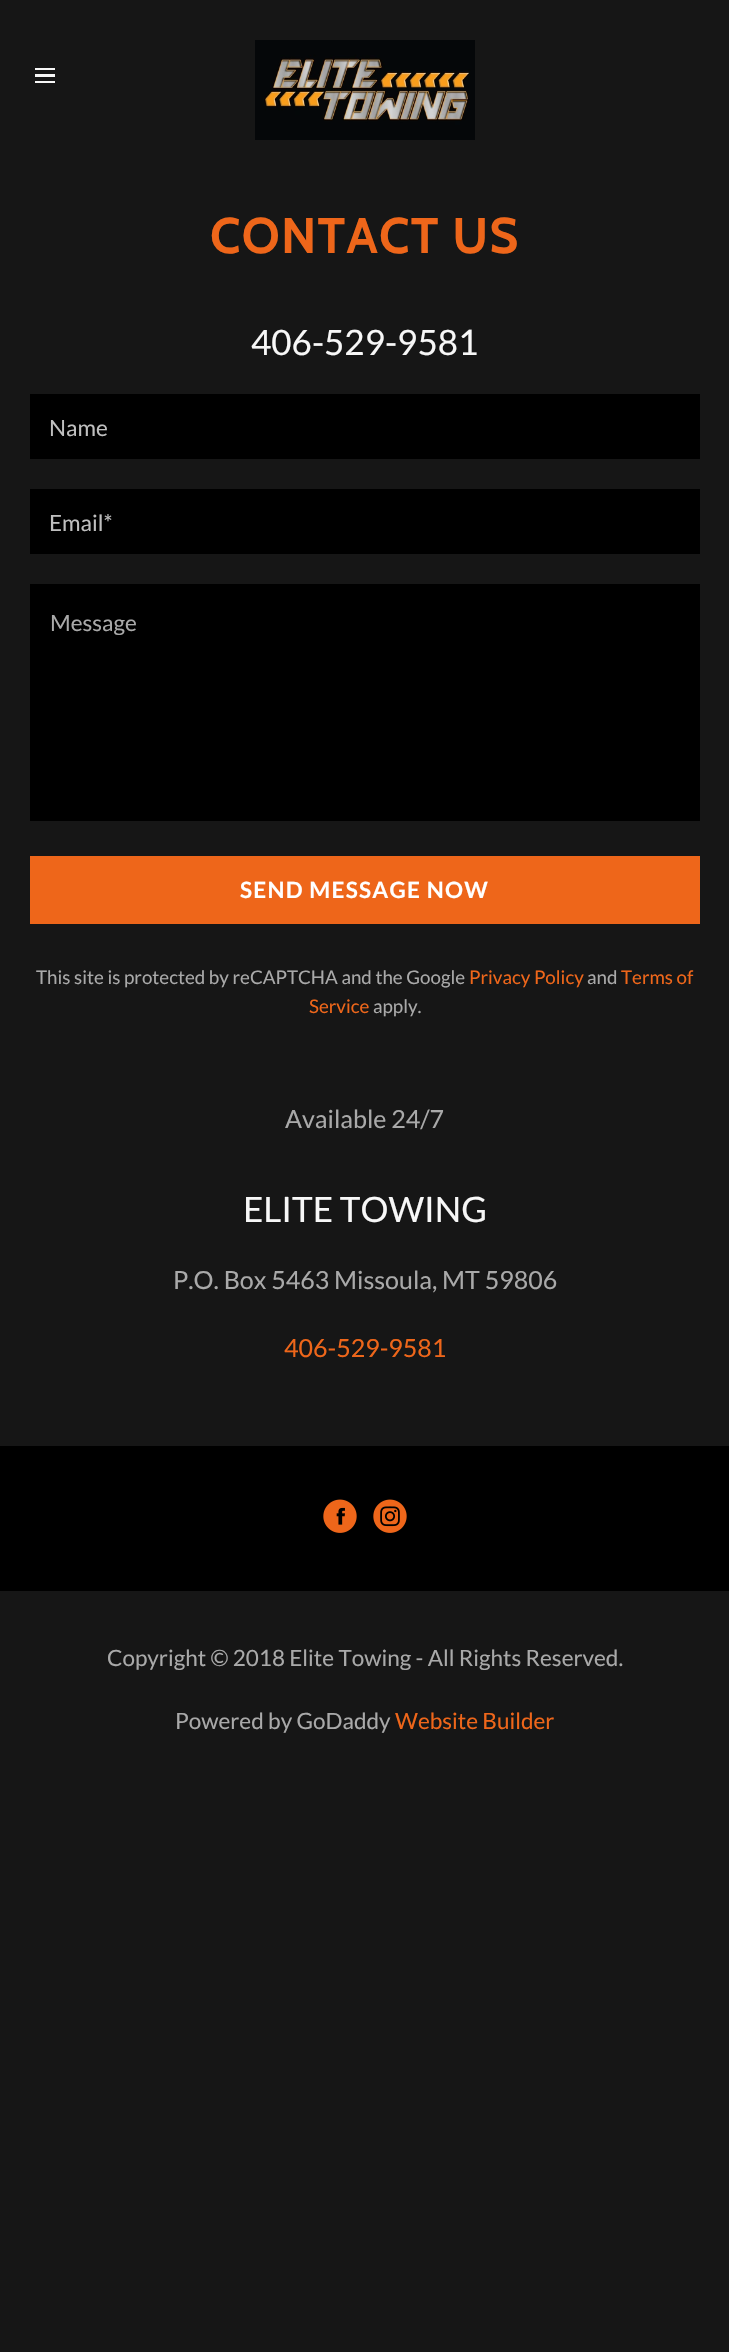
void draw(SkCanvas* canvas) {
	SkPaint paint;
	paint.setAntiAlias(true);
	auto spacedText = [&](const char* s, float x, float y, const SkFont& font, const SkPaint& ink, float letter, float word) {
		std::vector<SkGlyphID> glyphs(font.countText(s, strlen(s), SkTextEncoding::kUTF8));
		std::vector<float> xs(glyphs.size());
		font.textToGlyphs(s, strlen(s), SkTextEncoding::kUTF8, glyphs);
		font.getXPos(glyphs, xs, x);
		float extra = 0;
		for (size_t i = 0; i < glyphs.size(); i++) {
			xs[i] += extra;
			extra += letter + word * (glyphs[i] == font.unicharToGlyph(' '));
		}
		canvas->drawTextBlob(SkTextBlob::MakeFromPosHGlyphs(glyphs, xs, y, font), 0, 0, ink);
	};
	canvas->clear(0xff161616);
	paint.setColor(0xfff7f7f7);
	canvas->drawRect(SkRect::MakeXYWH(35, 68, 20, 2), paint);
	canvas->drawRect(SkRect::MakeXYWH(35, 74, 20, 3), paint);
	canvas->drawRect(SkRect::MakeXYWH(35, 81, 20, 2), paint);
	canvas->drawImageRect(SkImages::DeferredFromEncodedData(SkData::MakeFromFileName("img1.png")), SkRect::MakeXYWH(255, 40, 220, 100), SkSamplingOptions());
	SkFont f1(fontMgr->matchFamilyStyle("Cabin", SkFontStyle::Bold()), 50);
	f1.setSubpixel(true);
	paint.setColor(0xffee661a);
	spacedText("CONTACT US", 210, 253, f1, paint, 1.25, 0);
	SkFont f2(fontMgr->matchFamilyStyle("Lato", SkFontStyle::Normal()), 35);
	f2.setSubpixel(true);
	paint.setColor(0xfff7f7f7);
	canvas->drawString("406-529-9581", 251, 355, f2, paint);
	paint.setColor(0xff000000);
	canvas->drawRect(SkRect::MakeXYWH(30, 394, 670, 65), paint);
	SkFont f3(fontMgr->matchFamilyStyle("Lato", SkFontStyle::Normal()), 22.5);
	f3.setSubpixel(true);
	paint.setColor(0xffbfbfbf);
	canvas->drawString("Name", 49, 436, f3, paint);
	paint.setColor(0xff000000);
	canvas->drawRect(SkRect::MakeXYWH(30, 489, 670, 65), paint);
	paint.setColor(0xffbfbfbf);
	canvas->drawString("Email*", 49, 531, f3, paint);
	paint.setColor(0xff000000);
	canvas->drawRect(SkRect::MakeXYWH(30, 584, 670, 237), paint);
	paint.setColor(0xffa9a9a9);
	canvas->drawString("Message", 50, 631, f3, paint);
	paint.setColor(0xffee661a);
	canvas->drawRect(SkRect::MakeXYWH(30, 856, 670, 68), paint);
	SkFont f4(fontMgr->matchFamilyStyle("Lato", SkFontStyle::Bold()), 22.5);
	f4.setSubpixel(true);
	paint.setColor(0xffffffff);
	spacedText("SEND MESSAGE NOW", 240, 898, f4, paint, 1.25, 0);
	SkFont f5(fontMgr->matchFamilyStyle("Lato", SkFontStyle::Normal()), 18.75);
	f5.setSubpixel(true);
	paint.setColor(0xffa9a9a9);
	canvas->drawString("This site is protected by reCAPTCHA and the Google", 36, 984, f5, paint);
	paint.setColor(0xffee661a);
	canvas->drawString("Privacy Policy", 469, 984, f5, paint);
	paint.setColor(0xffa9a9a9);
	canvas->drawString("and", 587, 984, f5, paint);
	paint.setColor(0xffee661a);
	canvas->drawString("Terms of", 621, 984, f5, paint);
	canvas->drawString("Service", 309, 1013, f5, paint);
	paint.setColor(0xffa9a9a9);
	canvas->drawString("apply.", 373, 1013, f5, paint);
	SkFont f6(fontMgr->matchFamilyStyle("Lato", SkFontStyle::Normal()), 25);
	f6.setSubpixel(true);
	canvas->drawString("Available 24/7", 285, 1128, f6, paint);
	paint.setColor(0xfff7f7f7);
	canvas->drawString("ELITE TOWING", 243, 1222, f2, paint);
	paint.setColor(0xffa9a9a9);
	canvas->drawString("P.O. Box 5463 Missoula, MT 59806", 173, 1289, f6, paint);
	paint.setColor(0xffee661a);
	canvas->drawString("406-529-9581", 284, 1357, f6, paint);
	paint.setColor(0xff000000);
	canvas->drawRect(SkRect::MakeXYWH(0, 1446, 729, 145), paint);
	canvas->drawImageRect(SkImages::DeferredFromEncodedData(SkData::MakeFromFileName("img2.png")), SkRect::MakeXYWH(323, 1499, 34, 34), SkSamplingOptions());
	canvas->drawImageRect(SkImages::DeferredFromEncodedData(SkData::MakeFromFileName("img3.png")), SkRect::MakeXYWH(373, 1499, 34, 34), SkSamplingOptions());
	paint.setColor(0xffa9a9a9);
	canvas->drawString("Copyright © 2018 Elite Towing - All Rights Reserved.", 107, 1666, f3, paint);
	canvas->drawString("Powered by GoDaddy", 175, 1729, f3, paint);
	paint.setColor(0xffee661a);
	canvas->drawString("Website Builder", 395, 1729, f3, paint);
}
